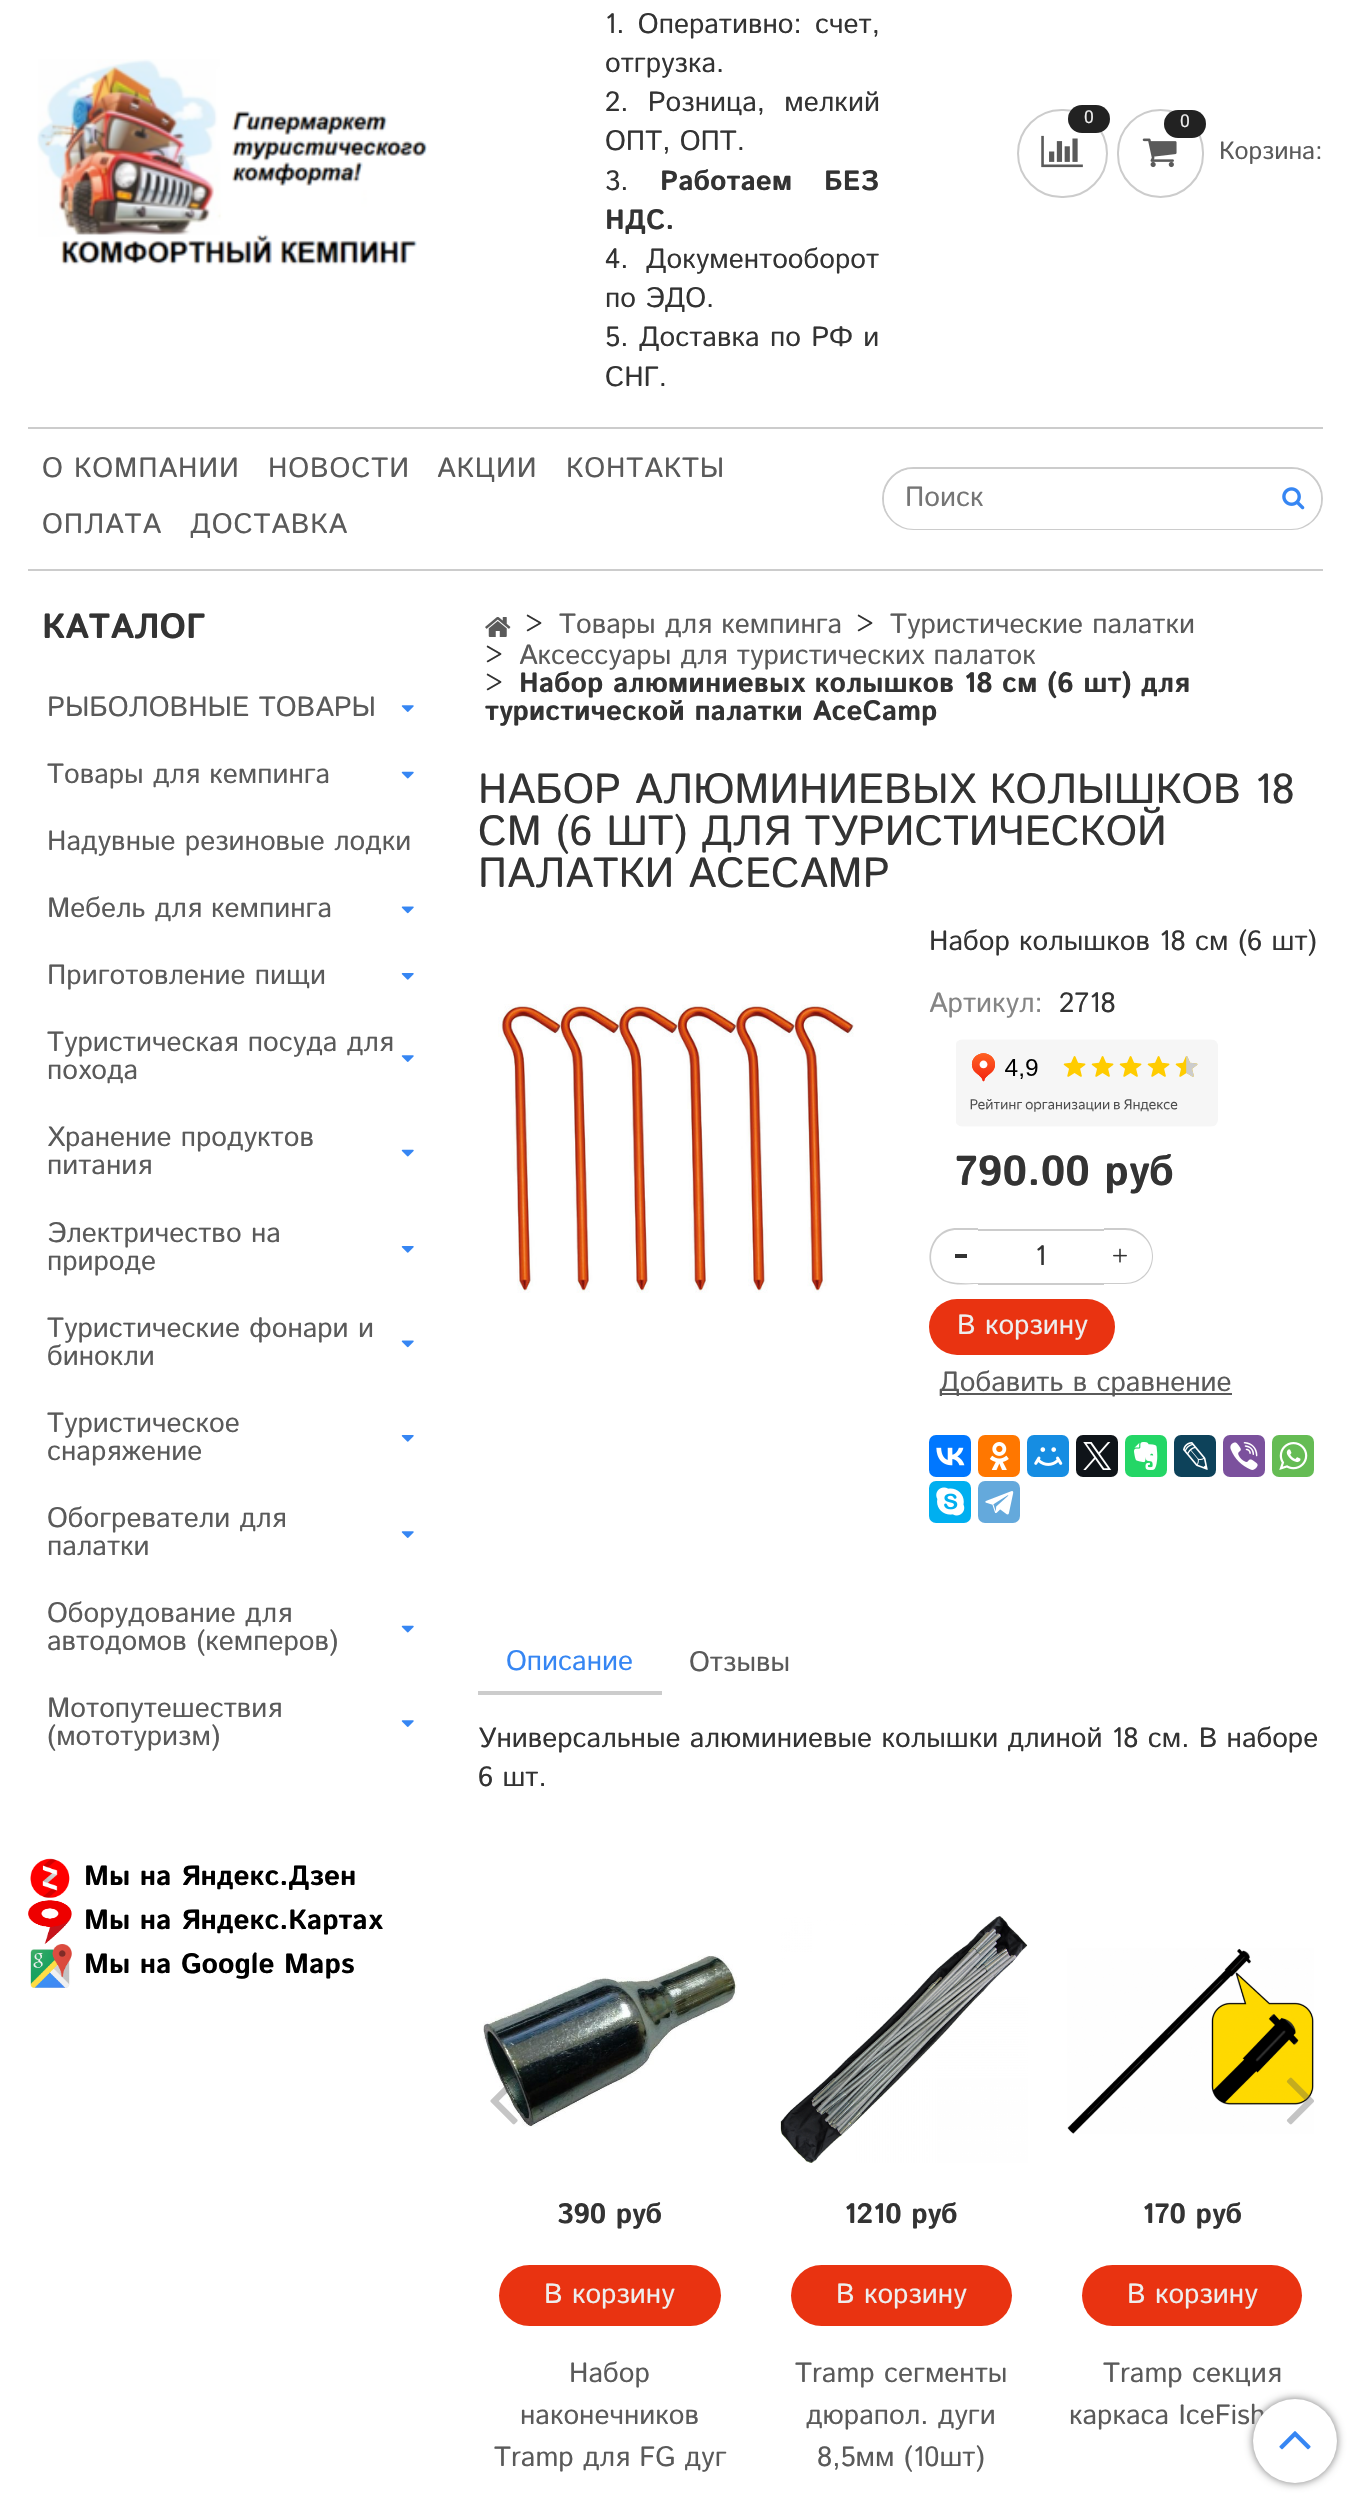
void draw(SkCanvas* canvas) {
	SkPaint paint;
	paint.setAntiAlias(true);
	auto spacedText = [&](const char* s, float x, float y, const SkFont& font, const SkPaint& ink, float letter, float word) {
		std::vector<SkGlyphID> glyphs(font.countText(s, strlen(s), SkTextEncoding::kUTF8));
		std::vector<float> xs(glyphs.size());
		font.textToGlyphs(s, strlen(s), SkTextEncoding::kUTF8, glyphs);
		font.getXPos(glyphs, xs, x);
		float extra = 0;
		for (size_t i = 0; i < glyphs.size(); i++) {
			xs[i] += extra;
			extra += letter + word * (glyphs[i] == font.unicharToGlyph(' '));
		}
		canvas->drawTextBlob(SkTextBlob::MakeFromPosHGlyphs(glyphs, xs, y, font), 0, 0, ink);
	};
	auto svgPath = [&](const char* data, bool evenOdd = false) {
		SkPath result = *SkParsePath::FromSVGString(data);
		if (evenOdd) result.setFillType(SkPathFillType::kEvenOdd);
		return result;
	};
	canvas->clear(0xffffffff);
	canvas->drawImageRect(SkImages::DeferredFromEncodedData(SkData::MakeFromFileName("img1.png")), SkRect::MakeXYWH(37, 59, 390, 206), SkSamplingOptions());
	SkFont f1(fontMgr->matchFamilyStyle("Istok Web", SkFontStyle::Normal()), 28);
	f1.setSubpixel(true);
	paint.setColor(0xff333333);
	spacedText("1. Оперативно: счет,", 605, 33, f1, paint, 0, 4);
	canvas->drawString("отгрузка.", 605, 72, f1, paint);
	spacedText("2. Розница, мелкий", 605, 111, f1, paint, 0, 10);
	canvas->drawString("ОПТ, ОПТ.", 605, 150, f1, paint);
	canvas->drawString("3.", 605, 190, f1, paint);
	SkFont f2(fontMgr->matchFamilyStyle("Istok Web", SkFontStyle::Bold()), 28);
	f2.setSubpixel(true);
	spacedText("Работаем БЕЗ", 660, 190, f2, paint, 0, 22);
	canvas->drawString("НДС.", 605, 229, f2, paint);
	spacedText("4. Документооборот", 605, 268, f1, paint, 0, 8);
	canvas->drawString("по ЭДО.", 605, 307, f1, paint);
	spacedText("5. Доставка по РФ и", 605, 346, f1, paint, 0, 1);
	canvas->drawString("СНГ.", 605, 386, f1, paint);
	paint.setStroke(true);
	paint.setStrokeWidth(2);
	paint.setColor(0xffcccccc);
	canvas->drawRoundRect(SkRect::MakeXYWH(1018, 110, 89, 87), 43.5, 43.5, paint);
	paint.setStroke(false);
	paint.setColor(0xff222222);
	canvas->drawRoundRect(SkRect::MakeXYWH(1068, 105, 42, 28), 14, 14, paint);
	SkFont f3(fontMgr->matchFamilyStyle("Istok Web", SkFontStyle::Normal()), 18);
	f3.setSubpixel(true);
	paint.setColor(0xffeeeeee);
	canvas->drawString("0", 1084, 123, f3, paint);
	canvas->drawImageRect(SkImages::DeferredFromEncodedData(SkData::MakeFromFileName("img2.png")), SkRect::MakeXYWH(1041, 135, 42, 33), SkSamplingOptions());
	paint.setStroke(true);
	paint.setColor(0xffcccccc);
	canvas->drawRoundRect(SkRect::MakeXYWH(1118, 110, 85, 87), 42.5, 42.5, paint);
	paint.setStroke(false);
	paint.setColor(0xff222222);
	canvas->drawRoundRect(SkRect::MakeXYWH(1164, 110, 42, 28), 14, 14, paint);
	paint.setColor(0xffeeeeee);
	canvas->drawString("0", 1180, 127, f3, paint);
	canvas->drawImageRect(SkImages::DeferredFromEncodedData(SkData::MakeFromFileName("img3.png")), SkRect::MakeXYWH(1142, 138, 35, 30), SkSamplingOptions());
	SkFont f4(fontMgr->matchFamilyStyle("Istok Web", SkFontStyle::Normal()), 25);
	f4.setSubpixel(true);
	paint.setColor(0xff5a5a5a);
	canvas->drawString("Корзина:", 1219, 159, f4, paint);
	paint.setColor(0xffcccccc);
	canvas->drawRect(SkRect::MakeXYWH(28, 427, 1295, 2), paint);
	canvas->drawRect(SkRect::MakeXYWH(28, 569, 1295, 2), paint);
	paint.setColor(0xff5a5a5a);
	spacedText("О КОМПАНИИ", 42, 477, f1, paint, 0.9, 0);
	spacedText("НОВОСТИ", 268, 477, f1, paint, 0.9, 0);
	spacedText("АКЦИИ", 437, 477, f1, paint, 0.9, 0);
	spacedText("КОНТАКТЫ", 566, 477, f1, paint, 0.9, 0);
	spacedText("ОПЛАТА", 42, 533, f1, paint, 0.9, 0);
	spacedText("ДОСТАВКА", 190, 533, f1, paint, 0.9, 0);
	paint.setStroke(true);
	paint.setColor(0xffcccccc);
	canvas->drawRoundRect(SkRect::MakeXYWH(883, 468, 439, 61), 30.5, 30.5, paint);
	paint.setStroke(false);
	paint.setColor(0xffffffff);
	canvas->drawPath(svgPath("M914 469H1265V529H914C897.5 529 884 515.5 884 499C884 482.5 897.5 469 914 469Z"), paint);
	paint.setColor(0xff757575);
	canvas->drawString("Поиск", 905, 506, f1, paint);
	paint.setColor(0xffffffff);
	canvas->drawPath(svgPath("M1265 469H1291C1307.5 469 1321 482.5 1321 499C1321 515.5 1307.5 529 1291 529H1265Z"), paint);
	canvas->drawImageRect(SkImages::DeferredFromEncodedData(SkData::MakeFromFileName("img4.png")), SkRect::MakeXYWH(1282, 487, 23, 23), SkSamplingOptions());
	SkFont f5(fontMgr->matchFamilyStyle("Istok Web", SkFontStyle::Bold()), 35);
	f5.setSubpixel(true);
	paint.setColor(0xff333333);
	canvas->drawString("КАТАЛОГ", 42, 638, f5, paint);
	paint.setColor(0xff5a5a5a);
	canvas->drawString("РЫБОЛОВНЫЕ ТОВАРЫ", 47, 716, f1, paint);
	canvas->drawImageRect(SkImages::DeferredFromEncodedData(SkData::MakeFromFileName("img5.png")), SkRect::MakeXYWH(401, 705, 13, 7), SkSamplingOptions());
	canvas->drawString("Товары для кемпинга", 47, 783, f1, paint);
	canvas->drawImageRect(SkImages::DeferredFromEncodedData(SkData::MakeFromFileName("img6.png")), SkRect::MakeXYWH(401, 771, 13, 8), SkSamplingOptions());
	canvas->drawString("Надувные резиновые лодки", 47, 850, f1, paint);
	canvas->drawString("Мебель для кемпинга", 47, 917, f1, paint);
	canvas->drawImageRect(SkImages::DeferredFromEncodedData(SkData::MakeFromFileName("img7.png")), SkRect::MakeXYWH(401, 906, 13, 8), SkSamplingOptions());
	canvas->drawString("Приготовление пищи", 47, 984, f1, paint);
	canvas->drawImageRect(SkImages::DeferredFromEncodedData(SkData::MakeFromFileName("img8.png")), SkRect::MakeXYWH(401, 973, 13, 7), SkSamplingOptions());
	canvas->drawString("Туристическая посуда для", 47, 1051, f1, paint);
	canvas->drawString("похода", 47, 1079, f1, paint);
	canvas->drawImageRect(SkImages::DeferredFromEncodedData(SkData::MakeFromFileName("img5.png")), SkRect::MakeXYWH(401, 1055, 13, 7), SkSamplingOptions());
	canvas->drawString("Хранение продуктов", 47, 1146, f1, paint);
	canvas->drawString("питания", 47, 1174, f1, paint);
	canvas->drawImageRect(SkImages::DeferredFromEncodedData(SkData::MakeFromFileName("img6.png")), SkRect::MakeXYWH(401, 1149, 13, 8), SkSamplingOptions());
	canvas->drawString("Электричество на", 47, 1242, f1, paint);
	canvas->drawString("природе", 47, 1270, f1, paint);
	canvas->drawImageRect(SkImages::DeferredFromEncodedData(SkData::MakeFromFileName("img8.png")), SkRect::MakeXYWH(401, 1246, 13, 7), SkSamplingOptions());
	canvas->drawString("Туристические фонари и", 47, 1337, f1, paint);
	canvas->drawString("бинокли", 47, 1365, f1, paint);
	canvas->drawImageRect(SkImages::DeferredFromEncodedData(SkData::MakeFromFileName("img7.png")), SkRect::MakeXYWH(401, 1340, 13, 8), SkSamplingOptions());
	canvas->drawString("Туристическое", 47, 1432, f1, paint);
	canvas->drawString("снаряжение", 47, 1460, f1, paint);
	canvas->drawImageRect(SkImages::DeferredFromEncodedData(SkData::MakeFromFileName("img8.png")), SkRect::MakeXYWH(401, 1435, 13, 7), SkSamplingOptions());
	canvas->drawString("Обогреватели для", 47, 1527, f1, paint);
	canvas->drawString("палатки", 47, 1555, f1, paint);
	canvas->drawImageRect(SkImages::DeferredFromEncodedData(SkData::MakeFromFileName("img5.png")), SkRect::MakeXYWH(401, 1531, 13, 7), SkSamplingOptions());
	canvas->drawString("Оборудование для", 47, 1622, f1, paint);
	canvas->drawString("автодомов (кемперов)", 47, 1650, f1, paint);
	canvas->drawImageRect(SkImages::DeferredFromEncodedData(SkData::MakeFromFileName("img6.png")), SkRect::MakeXYWH(401, 1625, 13, 8), SkSamplingOptions());
	canvas->drawString("Мотопутешествия", 47, 1717, f1, paint);
	canvas->drawString("(мототуризм)", 47, 1745, f1, paint);
	canvas->drawImageRect(SkImages::DeferredFromEncodedData(SkData::MakeFromFileName("img5.png")), SkRect::MakeXYWH(401, 1720, 13, 7), SkSamplingOptions());
	canvas->drawImageRect(SkImages::DeferredFromEncodedData(SkData::MakeFromFileName("img9.png")), SkRect::MakeXYWH(30, 1858, 40, 40), SkSamplingOptions());
	paint.setColor(0xff000000);
	canvas->drawString("Мы на Яндекс.Дзен", 84, 1885, f2, paint);
	canvas->drawImageRect(SkImages::DeferredFromEncodedData(SkData::MakeFromFileName("img10.png")), SkRect::MakeXYWH(28, 1900, 44, 44), SkSamplingOptions());
	canvas->drawString("Мы на Яндекс.Картах", 84, 1929, f2, paint);
	canvas->drawImageRect(SkImages::DeferredFromEncodedData(SkData::MakeFromFileName("img11.png")), SkRect::MakeXYWH(30, 1944, 42, 44), SkSamplingOptions());
	canvas->drawString("Мы на Google Maps", 84, 1973, f2, paint);
	canvas->drawImageRect(SkImages::DeferredFromEncodedData(SkData::MakeFromFileName("img12.png")), SkRect::MakeXYWH(485, 617, 26, 20), SkSamplingOptions());
	paint.setColor(0xff333333);
	canvas->drawString(">", 525, 633, f1, paint);
	paint.setColor(0xff5a5a5a);
	canvas->drawString("Товары для кемпинга", 559, 633, f1, paint);
	paint.setColor(0xff333333);
	canvas->drawString(">", 856, 633, f1, paint);
	paint.setColor(0xff5a5a5a);
	canvas->drawString("Туристические палатки", 890, 633, f1, paint);
	paint.setColor(0xff333333);
	canvas->drawString(">", 485, 664, f1, paint);
	paint.setColor(0xff5a5a5a);
	canvas->drawString("Аксессуары для туристических палаток", 519, 664, f1, paint);
	paint.setColor(0xff333333);
	canvas->drawString(">", 485, 692, f1, paint);
	canvas->drawString("Набор алюминиевых колышков 18 см (6 шт) для", 519, 692, f2, paint);
	canvas->drawString("туристической палатки AceCamp", 485, 720, f2, paint);
	SkFont f6(fontMgr->matchFamilyStyle("Istok Web", SkFontStyle::Normal()), 42);
	f6.setSubpixel(true);
	canvas->drawString("НАБОР АЛЮМИНИЕВЫХ КОЛЫШКОВ 18", 478, 803, f6, paint);
	canvas->drawString("СМ (6 ШТ) ДЛЯ ТУРИСТИЧЕСКОЙ", 478, 845, f6, paint);
	canvas->drawString("ПАЛАТКИ ACECAMP", 478, 887, f6, paint);
	canvas->drawImageRect(SkImages::DeferredFromEncodedData(SkData::MakeFromFileName("img13.png")), SkRect::MakeXYWH(498, 1004, 356, 289), SkSamplingOptions());
	canvas->drawString("Набор колышков 18 см (6 шт)", 929, 950, f1, paint);
	paint.setColor(0xff858585);
	canvas->drawString("Артикул:", 929, 1012, f1, paint);
	paint.setColor(0xff333333);
	canvas->drawString("2718", 1059, 1012, f1, paint);
	canvas->drawImageRect(SkImages::DeferredFromEncodedData(SkData::MakeFromFileName("img14.png")), SkRect::MakeXYWH(956, 1039, 262, 88), SkSamplingOptions());
	SkFont f7(fontMgr->matchFamilyStyle("Istok Web", SkFontStyle::Bold()), 42);
	f7.setSubpixel(true);
	canvas->drawString("790.00 руб", 955, 1185, f7, paint);
	paint.setColor(0xffcccccc);
	canvas->drawPath(svgPath("M957 1228H978V1284C968 1284 955 1286 946 1282C919 1271 927 1228 957 1228ZM957 1230H978V1283C969 1283 956 1284 947 1281C921 1270 929 1230 957 1230Z", true), paint);
	paint.setColor(0xff333333);
	canvas->drawRect(SkRect::MakeXYWH(955, 1254, 12, 4), paint);
	paint.setColor(0xffcccccc);
	canvas->drawRect(SkRect::MakeXYWH(978, 1229, 126, 2), paint);
	canvas->drawRect(SkRect::MakeXYWH(978, 1283, 126, 2), paint);
	paint.setColor(0xff333333);
	canvas->drawString("1", 1035, 1265, f1, paint);
	paint.setColor(0xffcccccc);
	canvas->drawPath(svgPath("M1104 1228H1125C1141 1228 1153 1241 1153 1256C1153 1272 1141 1284 1125 1284H1104ZM1104 1230H1125C1140 1230 1152 1242 1152 1256C1152 1271 1140 1283 1125 1283H1104Z", true), paint);
	canvas->drawImageRect(SkImages::DeferredFromEncodedData(SkData::MakeFromFileName("img15.png")), SkRect::MakeXYWH(1113, 1248, 14, 15), SkSamplingOptions());
	paint.setColor(0xffe93311);
	canvas->drawRoundRect(SkRect::MakeXYWH(929, 1299, 186, 56), 28, 28, paint);
	paint.setColor(0xffeeeeee);
	canvas->drawString("В корзину", 957, 1334, f1, paint);
	paint.setColor(0xff5a5a5a);
	canvas->drawRect(SkRect::MakeXYWH(940, 1393, 292, 2), paint);
	canvas->drawString("Добавить в сравнение", 939, 1391, f1, paint);
	paint.setColor(0xff0077ff);
	canvas->drawRoundRect(SkRect::MakeXYWH(929, 1435, 42, 42), 7, 7, paint);
	canvas->drawImageRect(SkImages::DeferredFromEncodedData(SkData::MakeFromFileName("img16.png")), SkRect::MakeXYWH(936, 1447, 29, 19), SkSamplingOptions());
	paint.setColor(0xffff7700);
	canvas->drawRoundRect(SkRect::MakeXYWH(978, 1435, 42, 42), 7, 7, paint);
	canvas->drawImageRect(SkImages::DeferredFromEncodedData(SkData::MakeFromFileName("img17.png")), SkRect::MakeXYWH(989, 1442, 20, 28), SkSamplingOptions());
	paint.setColor(0xff168de2);
	canvas->drawRoundRect(SkRect::MakeXYWH(1027, 1435, 42, 42), 7, 7, paint);
	canvas->drawImageRect(SkImages::DeferredFromEncodedData(SkData::MakeFromFileName("img18.png")), SkRect::MakeXYWH(1034, 1447, 29, 19), SkSamplingOptions());
	paint.setColor(0xff0f1419);
	canvas->drawRoundRect(SkRect::MakeXYWH(1076, 1435, 42, 42), 7, 7, paint);
	canvas->drawImageRect(SkImages::DeferredFromEncodedData(SkData::MakeFromFileName("img19.png")), SkRect::MakeXYWH(1083, 1442, 29, 28), SkSamplingOptions());
	paint.setColor(0xff24d666);
	canvas->drawRoundRect(SkRect::MakeXYWH(1125, 1435, 42, 42), 7, 7, paint);
	canvas->drawImageRect(SkImages::DeferredFromEncodedData(SkData::MakeFromFileName("img20.png")), SkRect::MakeXYWH(1134, 1442, 24, 28), SkSamplingOptions());
	paint.setColor(0xff0d425a);
	canvas->drawRoundRect(SkRect::MakeXYWH(1174, 1435, 42, 42), 7, 7, paint);
	canvas->drawImageRect(SkImages::DeferredFromEncodedData(SkData::MakeFromFileName("img21.png")), SkRect::MakeXYWH(1183, 1442, 25, 28), SkSamplingOptions());
	paint.setColor(0xff7b519d);
	canvas->drawRoundRect(SkRect::MakeXYWH(1223, 1435, 42, 42), 7, 7, paint);
	canvas->drawImageRect(SkImages::DeferredFromEncodedData(SkData::MakeFromFileName("img22.png")), SkRect::MakeXYWH(1230, 1442, 28, 28), SkSamplingOptions());
	paint.setColor(0xff65bc54);
	canvas->drawRoundRect(SkRect::MakeXYWH(1272, 1435, 42, 42), 7, 7, paint);
	canvas->drawImageRect(SkImages::DeferredFromEncodedData(SkData::MakeFromFileName("img23.png")), SkRect::MakeXYWH(1279, 1442, 29, 28), SkSamplingOptions());
	paint.setColor(0xff00aff0);
	canvas->drawRoundRect(SkRect::MakeXYWH(929, 1481, 42, 42), 7, 7, paint);
	canvas->drawImageRect(SkImages::DeferredFromEncodedData(SkData::MakeFromFileName("img24.png")), SkRect::MakeXYWH(936, 1487, 29, 29), SkSamplingOptions());
	paint.setColor(0xff64a9dc);
	canvas->drawRoundRect(SkRect::MakeXYWH(978, 1481, 42, 42), 7, 7, paint);
	canvas->drawImageRect(SkImages::DeferredFromEncodedData(SkData::MakeFromFileName("img25.png")), SkRect::MakeXYWH(985, 1491, 29, 24), SkSamplingOptions());
	paint.setColor(0xffcccccc);
	canvas->drawRect(SkRect::MakeXYWH(478, 1691, 184, 4), paint);
	paint.setColor(0xff3686f3);
	canvas->drawString("Описание", 506, 1670, f1, paint);
	paint.setColor(0xff5a5a5a);
	canvas->drawString("Отзывы", 689, 1671, f1, paint);
	paint.setColor(0xff333333);
	canvas->drawString("Универсальные алюминиевые колышки длиной 18 см. В наборе", 478, 1747, f1, paint);
	canvas->drawString("6 шт.", 478, 1786, f1, paint);
	canvas->drawImageRect(SkImages::DeferredFromEncodedData(SkData::MakeFromFileName("img28.png")), SkRect::MakeXYWH(483, 1955, 254, 172), SkSamplingOptions());
	canvas->drawImageRect(SkImages::DeferredFromEncodedData(SkData::MakeFromFileName("img26.png")), SkRect::MakeXYWH(490, 2077, 28, 48), SkSamplingOptions());
	canvas->drawImageRect(SkImages::DeferredFromEncodedData(SkData::MakeFromFileName("img30.png")), SkRect::MakeXYWH(1067, 1948, 247, 186), SkSamplingOptions());
	canvas->drawImageRect(SkImages::DeferredFromEncodedData(SkData::MakeFromFileName("img27.png")), SkRect::MakeXYWH(1286, 2077, 28, 48), SkSamplingOptions());
	canvas->drawString("390 руб", 557, 2223, f2, paint);
	paint.setColor(0xffe93311);
	canvas->drawRoundRect(SkRect::MakeXYWH(499, 2265, 222, 61), 30.5, 30.5, paint);
	paint.setColor(0xffeeeeee);
	canvas->drawString("В корзину", 544, 2303, f1, paint);
	paint.setColor(0xff5a5a5a);
	canvas->drawString("Набор", 569, 2382, f1, paint);
	canvas->drawString("наконечников", 520, 2424, f1, paint);
	canvas->drawString("Tramp для FG дуг", 494, 2466, f1, paint);
	canvas->drawImageRect(SkImages::DeferredFromEncodedData(SkData::MakeFromFileName("img29.png")), SkRect::MakeXYWH(780, 1916, 248, 247), SkSamplingOptions());
	paint.setColor(0xff333333);
	canvas->drawString("1210 руб", 844, 2223, f2, paint);
	paint.setColor(0xffe93311);
	canvas->drawRoundRect(SkRect::MakeXYWH(791, 2265, 221, 61), 30.5, 30.5, paint);
	paint.setColor(0xffeeeeee);
	canvas->drawString("В корзину", 836, 2303, f1, paint);
	paint.setColor(0xff5a5a5a);
	canvas->drawString("Tramp сегменты", 795, 2382, f1, paint);
	canvas->drawString("дюрапол. дуги", 806, 2424, f1, paint);
	canvas->drawString("8,5мм (10шт)", 817, 2466, f1, paint);
	paint.setColor(0xff333333);
	canvas->drawString("170 руб", 1142, 2223, f2, paint);
	paint.setColor(0xffe93311);
	canvas->drawRoundRect(SkRect::MakeXYWH(1082, 2265, 220, 61), 30.5, 30.5, paint);
	paint.setColor(0xffeeeeee);
	canvas->drawString("В корзину", 1127, 2303, f1, paint);
	paint.setColor(0xff5a5a5a);
	canvas->drawString("Tramp секция", 1103, 2382, f1, paint);
	canvas->drawString("каркаса IceFish", 1069, 2424, f1, paint);
	paint.setColor(0xff777777);
	paint.setMaskFilter(SkMaskFilter::MakeBlur(kNormal_SkBlurStyle, 4.5));
	canvas->drawRoundRect(SkRect::MakeXYWH(1253, 2399, 84, 84), 42, 42, paint);
	paint.setMaskFilter(nullptr);
	paint.setColor(0xffffffff);
	canvas->drawCircle(1295, 2441, 42, paint);
	canvas->drawImageRect(SkImages::DeferredFromEncodedData(SkData::MakeFromFileName("img31.png")), SkRect::MakeXYWH(1279, 2431, 32, 19), SkSamplingOptions());
}
